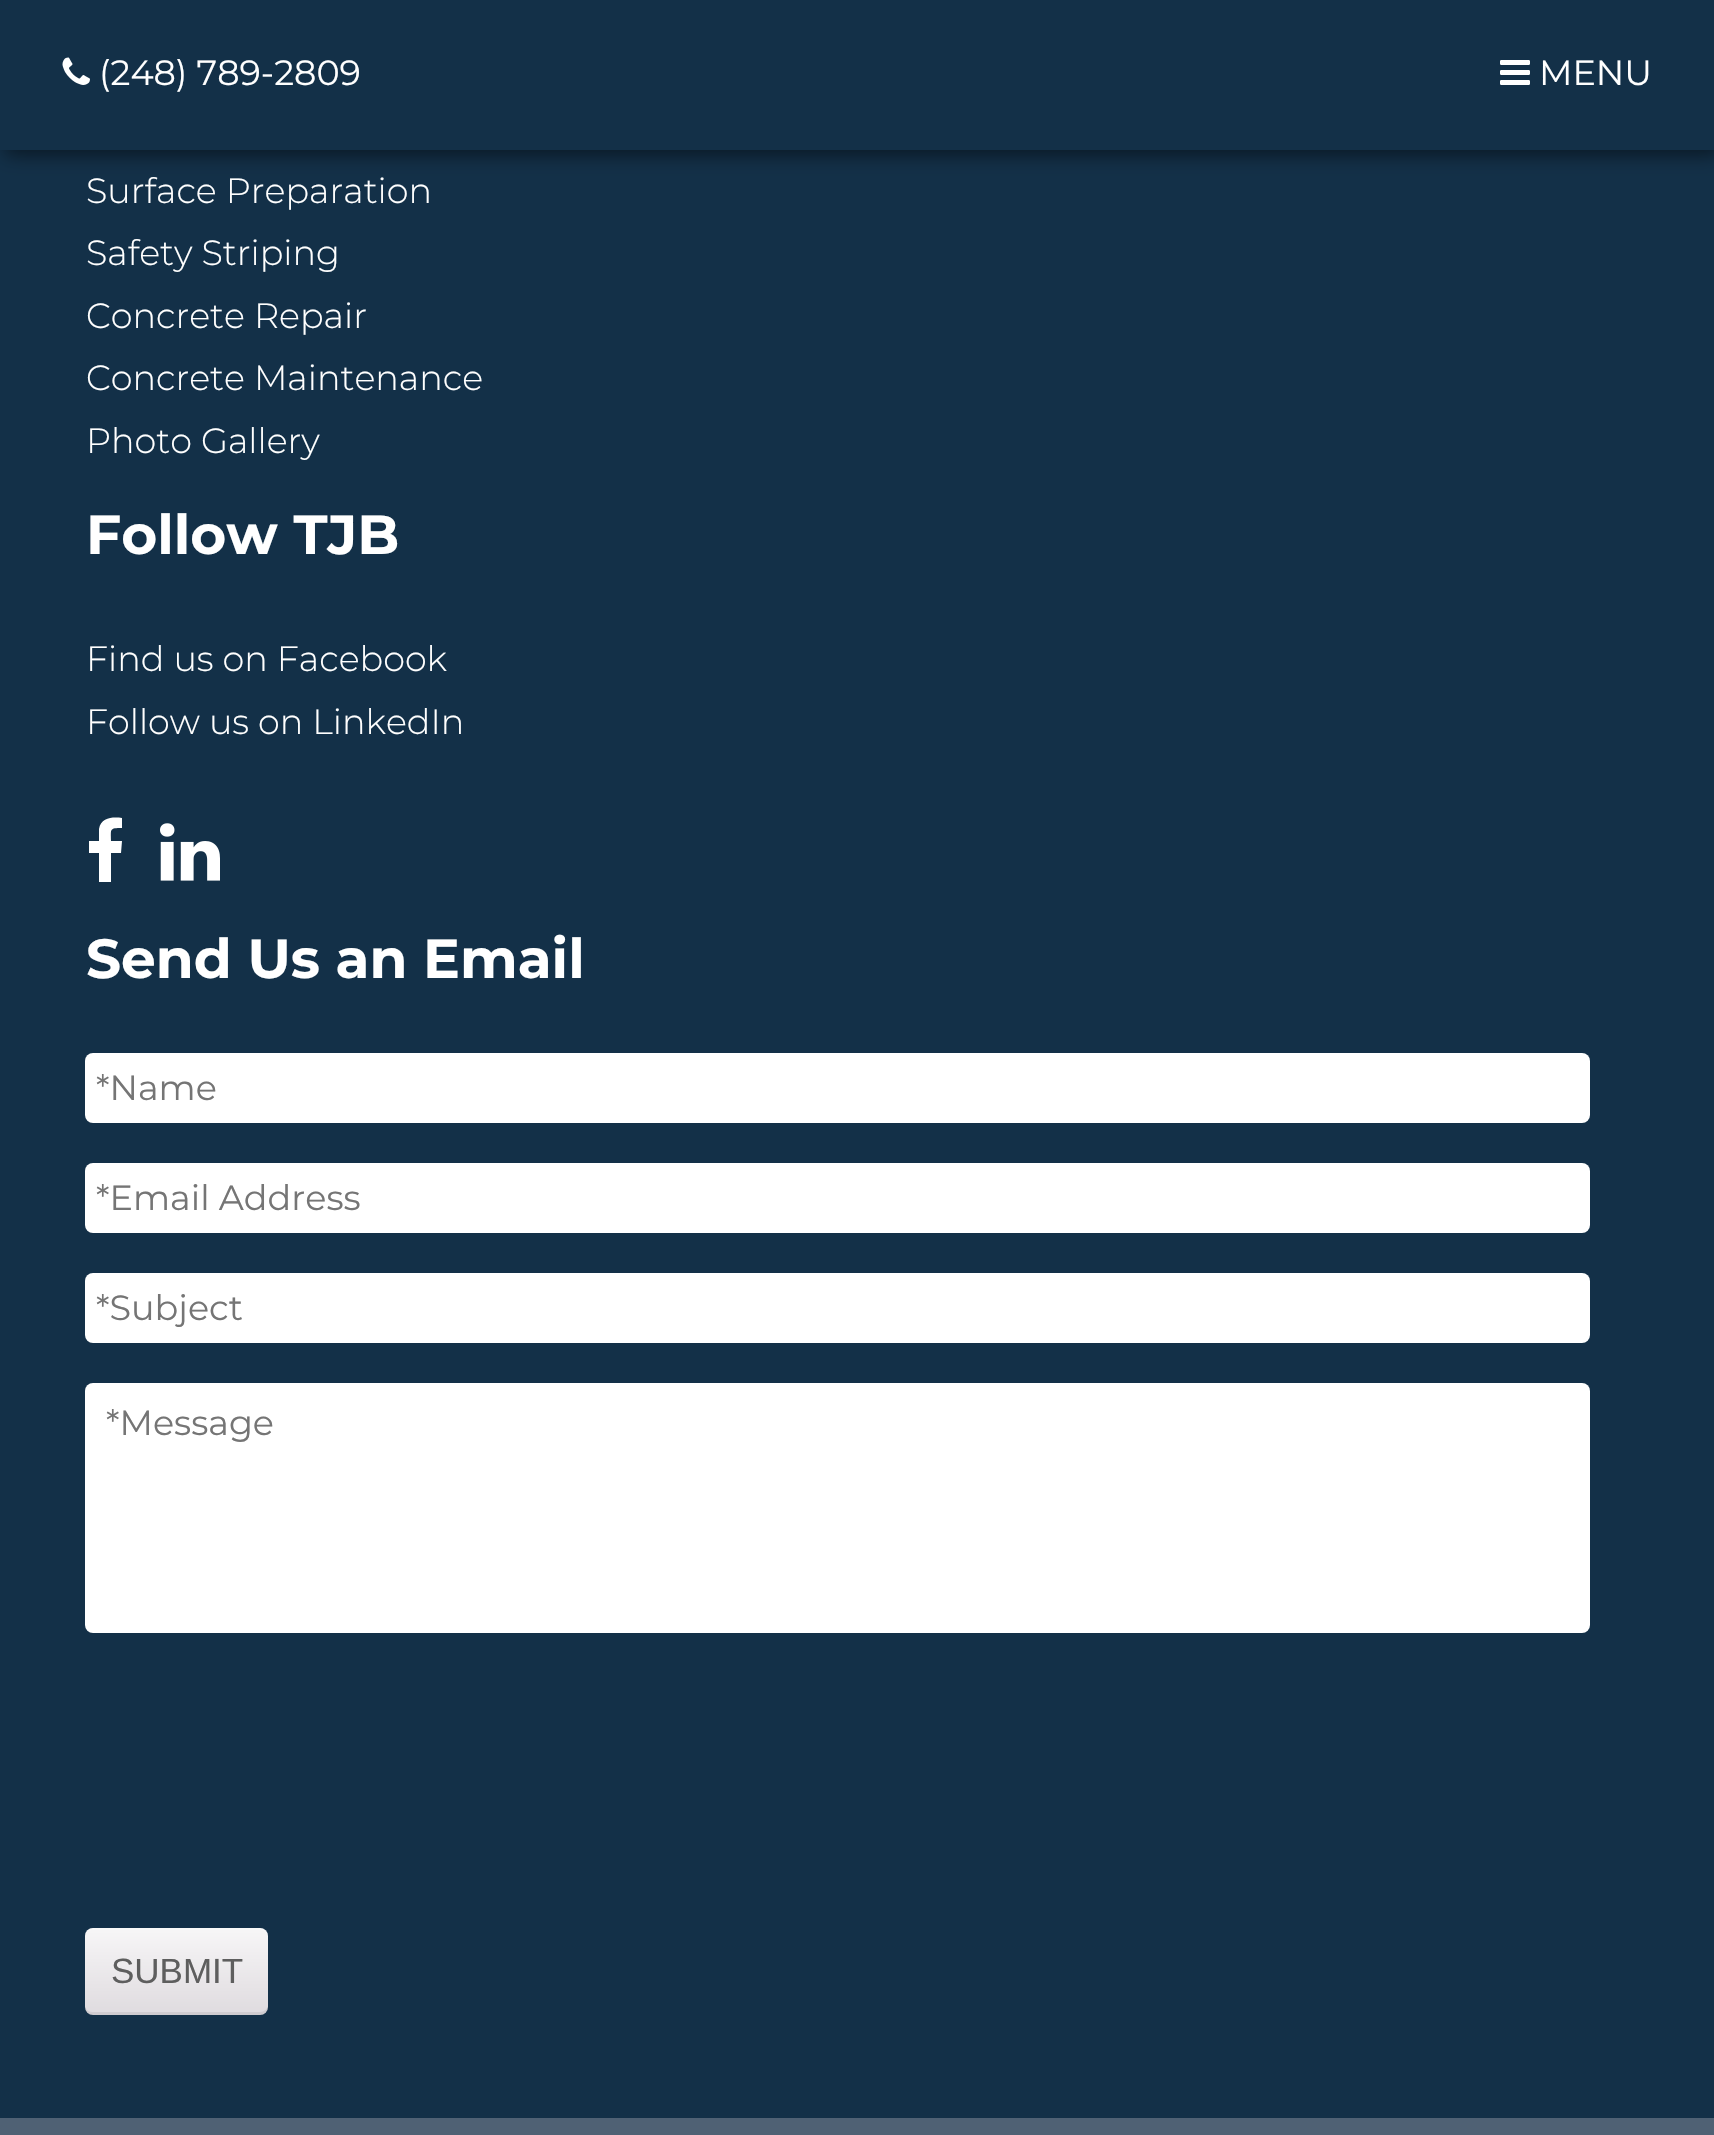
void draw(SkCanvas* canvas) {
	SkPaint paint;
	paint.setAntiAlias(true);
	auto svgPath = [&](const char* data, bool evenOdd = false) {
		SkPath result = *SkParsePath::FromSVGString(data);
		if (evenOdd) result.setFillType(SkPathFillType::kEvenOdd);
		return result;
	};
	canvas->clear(0xff133048);
	paint.setColor(0x80000000);
	paint.setMaskFilter(SkMaskFilter::MakeBlur(kNormal_SkBlurStyle, 9));
	canvas->drawRect(SkRect::MakeXYWH(5, 5, 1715, 150), paint);
	paint.setMaskFilter(nullptr);
	paint.setColor(0xff133048);
	canvas->drawRect(SkRect::MakeXYWH(0, 0, 1714, 150), paint);
	canvas->drawImageRect(SkImages::DeferredFromEncodedData(SkData::MakeFromFileName("img1.png")), SkRect::MakeXYWH(62, 57, 28, 28), SkSamplingOptions());
	SkFont f1(fontMgr->matchFamilyStyle("Montserrat", SkFontStyle::Normal()), 35);
	f1.setSubpixel(true);
	paint.setColor(0xffffffff);
	canvas->drawString("(248) 789-2809", 99, 85, f1, paint);
	canvas->drawImageRect(SkImages::DeferredFromEncodedData(SkData::MakeFromFileName("img2.png")), SkRect::MakeXYWH(1500, 60, 30, 25), SkSamplingOptions());
	canvas->drawString("MENU", 1539, 85, f1, paint);
	SkFont f2(fontMgr->matchFamilyStyle("Montserrat", SkFontStyle(300, SkFontStyle::kNormal_Width, SkFontStyle::kUpright_Slant)), 35);
	f2.setSubpixel(true);
	canvas->drawString("Surface Preparation", 86, 203, f2, paint);
	canvas->drawString("Safety Striping", 86, 265, f2, paint);
	canvas->drawString("Concrete Repair", 86, 328, f2, paint);
	canvas->drawString("Concrete Maintenance", 86, 390, f2, paint);
	canvas->drawString("Photo Gallery", 86, 453, f2, paint);
	SkFont f3(fontMgr->matchFamilyStyle("Montserrat", SkFontStyle::Bold()), 55);
	f3.setSubpixel(true);
	canvas->drawString("Follow TJB", 86, 554, f3, paint);
	canvas->drawString("Find us on Facebook", 86, 671, f2, paint);
	canvas->drawString("Follow us on LinkedIn", 86, 734, f2, paint);
	canvas->drawPath(svgPath("M122 818V828C109 828 111 829 111 841H122L121 853H111V882H99V853H89V841H99V829C101 817 113 817 122 818Z"), paint);
	canvas->drawImageRect(SkImages::DeferredFromEncodedData(SkData::MakeFromFileName("img3.png")), SkRect::MakeXYWH(160, 823, 60, 58), SkSamplingOptions());
	canvas->drawString("Send Us an Email", 86, 978, f3, paint);
	canvas->drawRoundRect(SkRect::MakeXYWH(85, 1053, 1505, 70), 8, 8, paint);
	paint.setColor(0xff757575);
	canvas->drawString("*Name", 96, 1100, f1, paint);
	paint.setColor(0xffffffff);
	canvas->drawRoundRect(SkRect::MakeXYWH(85, 1163, 1505, 70), 8, 8, paint);
	paint.setColor(0xff757575);
	canvas->drawString("*Email Address", 96, 1210, f1, paint);
	paint.setColor(0xffffffff);
	canvas->drawRoundRect(SkRect::MakeXYWH(85, 1273, 1505, 70), 8, 8, paint);
	paint.setColor(0xff757575);
	canvas->drawString("*Subject", 96, 1320, f1, paint);
	paint.setColor(0xffffffff);
	canvas->drawRoundRect(SkRect::MakeXYWH(85, 1383, 1505, 250), 8, 8, paint);
	paint.setColor(0xff757575);
	canvas->drawString("*Message", 106, 1435, f1, paint);
	{
		const SkColor colors[] = {0xfff7f6f7, 0xffdfdbdf};
		const float stops[] = {0, 1};
		const SkPoint ends[] = {{176, 1928}, {176, 2015}};
		paint.setShader(SkGradientShader::MakeLinear(ends, colors, stops, 2, SkTileMode::kClamp));
		paint.setAlpha(255);
	}
	canvas->drawRoundRect(SkRect::MakeXYWH(85, 1928, 183, 87), 8, 8, paint);
	paint.setShader(nullptr);
	paint.setColor(0x4dffffff);
	canvas->drawPath(svgPath("M92 1930H260C264 1930 268 1933 268 1938V1936C268 1932 264 1928 260 1928H93C89 1928 85 1932 85 1936V1938C85 1933 88 1930 92 1930Z"), paint);
	paint.setColor(0x12000000);
	canvas->drawPath(svgPath("M85 2005V2007C85 2011 89 2015 93 2015H260C264 2015 268 2011 268 2007V2005C268 2009 264 2012 260 2012H92C88 2012 85 2009 85 2005Z"), paint);
	SkFont f4(fontMgr->matchFamilyStyle("Liberation Sans", SkFontStyle::Normal()), 35);
	f4.setSubpixel(true);
	paint.setColor(0xff5e5e5e);
	canvas->drawString("SUBMIT", 111, 1983, f4, paint);
	paint.setColor(0xff4f6174);
	canvas->drawRect(SkRect::MakeXYWH(0, 2118, 1714, 17), paint);
}
